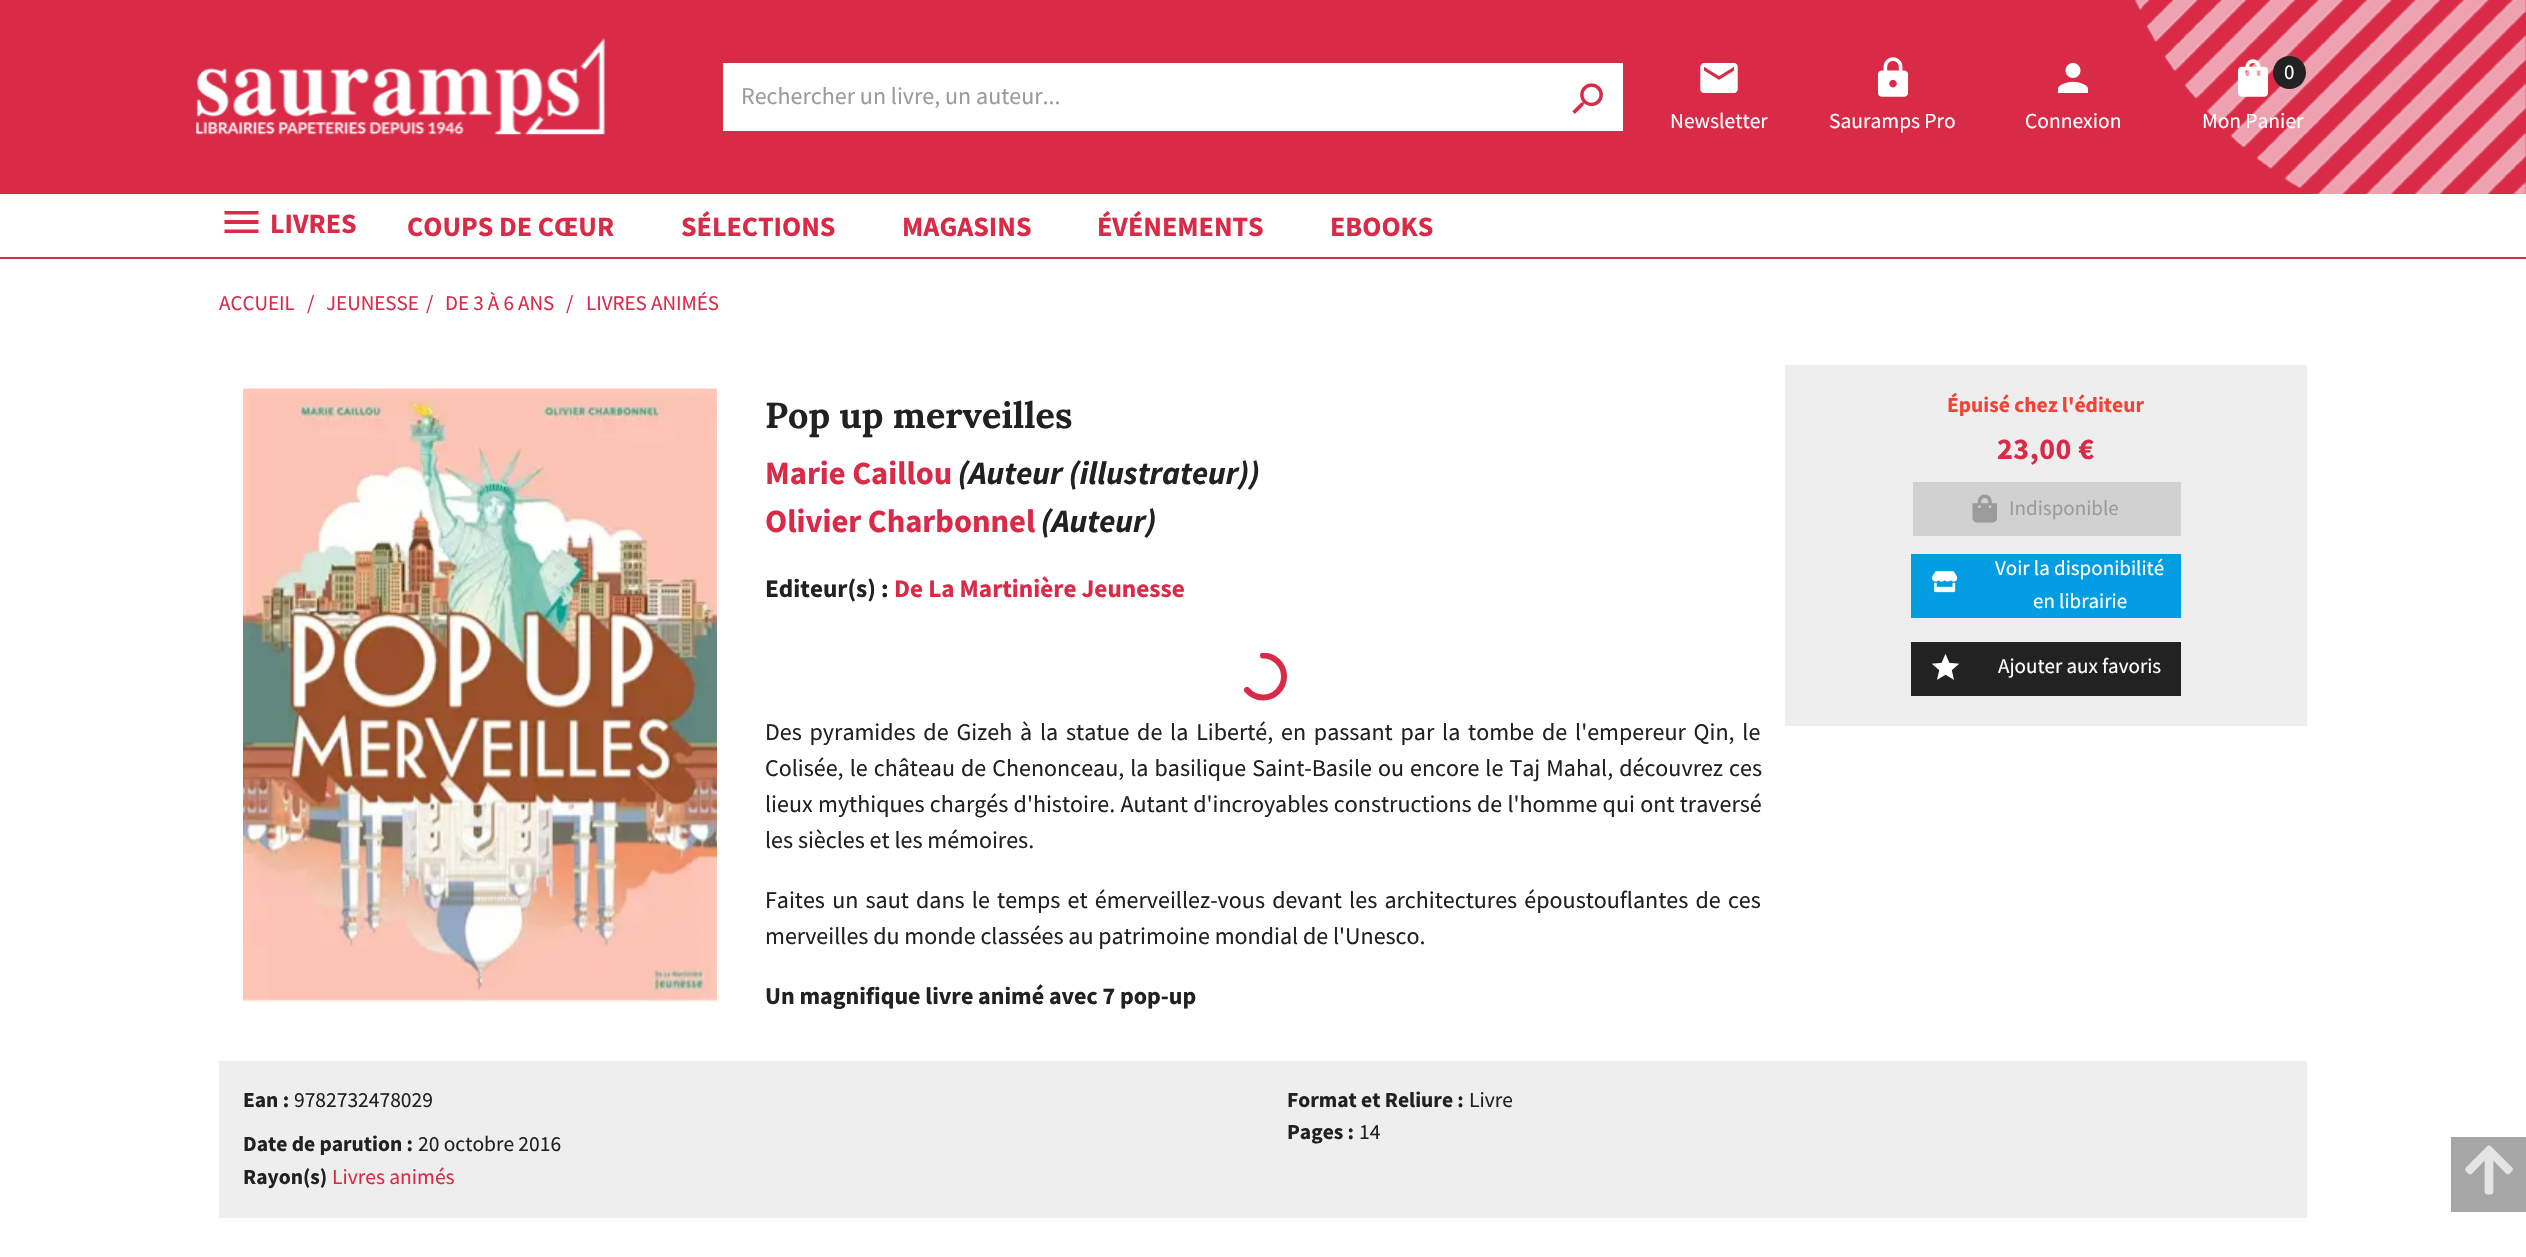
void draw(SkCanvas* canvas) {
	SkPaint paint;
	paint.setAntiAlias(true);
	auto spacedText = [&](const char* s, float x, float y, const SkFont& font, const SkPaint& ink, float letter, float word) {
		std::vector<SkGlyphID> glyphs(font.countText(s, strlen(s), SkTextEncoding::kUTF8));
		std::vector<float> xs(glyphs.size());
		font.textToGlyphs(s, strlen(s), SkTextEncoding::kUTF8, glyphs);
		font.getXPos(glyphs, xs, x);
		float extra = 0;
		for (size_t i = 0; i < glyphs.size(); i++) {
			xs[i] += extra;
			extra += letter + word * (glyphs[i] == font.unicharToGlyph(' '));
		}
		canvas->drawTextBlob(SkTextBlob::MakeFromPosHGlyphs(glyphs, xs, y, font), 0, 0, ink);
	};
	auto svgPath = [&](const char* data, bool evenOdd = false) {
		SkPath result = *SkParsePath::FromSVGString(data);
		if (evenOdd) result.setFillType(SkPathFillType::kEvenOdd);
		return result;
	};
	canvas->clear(0xffffffff);
	paint.setColor(0xffd92a47);
	canvas->drawRect(SkRect::MakeXYWH(0, 0, 2526, 194), paint);
	canvas->drawImageRect(SkImages::DeferredFromEncodedData(SkData::MakeFromFileName("img1.png")), SkRect::MakeXYWH(196, 38, 409, 97), SkSamplingOptions());
	paint.setColor(0xffffffff);
	canvas->drawRect(SkRect::MakeXYWH(723, 63, 900, 68), paint);
	SkFont f1(fontMgr->matchFamilyStyle("Source Sans Pro", SkFontStyle::Normal()), 24);
	f1.setSubpixel(true);
	paint.setColor(0xff9b9b9b);
	canvas->drawString("Rechercher un livre, un auteur...", 741, 104, f1, paint);
	canvas->drawImageRect(SkImages::DeferredFromEncodedData(SkData::MakeFromFileName("img2.png")), SkRect::MakeXYWH(1572, 83, 31, 31), SkSamplingOptions());
	SkFont f2(fontMgr->matchFamilyStyle("Source Sans Pro", SkFontStyle::Normal()), 21.5);
	f2.setSubpixel(true);
	paint.setColor(0xffffffff);
	canvas->drawString("Mon Panier", 2202, 128, f2, paint);
	canvas->drawImageRect(SkImages::DeferredFromEncodedData(SkData::MakeFromFileName("img7.png")), SkRect::MakeXYWH(2135, 0, 391, 194), SkSamplingOptions());
	canvas->drawImageRect(SkImages::DeferredFromEncodedData(SkData::MakeFromFileName("img3.png")), SkRect::MakeXYWH(2237, 59, 32, 38), SkSamplingOptions());
	paint.setColor(0xff222222);
	canvas->drawCircle(2289.5, 72.5, 16.5, paint);
	SkFont f3(fontMgr->matchFamilyStyle("Source Sans Pro", SkFontStyle::Normal()), 21);
	f3.setSubpixel(true);
	paint.setColor(0xffffffff);
	canvas->drawString("0", 2284, 79, f3, paint);
	canvas->drawImageRect(SkImages::DeferredFromEncodedData(SkData::MakeFromFileName("img4.png")), SkRect::MakeXYWH(1700, 63, 38, 30), SkSamplingOptions());
	canvas->drawString("Newsletter", 1670, 128, f2, paint);
	canvas->drawImageRect(SkImages::DeferredFromEncodedData(SkData::MakeFromFileName("img5.png")), SkRect::MakeXYWH(1877, 57, 32, 40), SkSamplingOptions());
	canvas->drawString("Sauramps Pro", 1829, 128, f2, paint);
	canvas->drawImageRect(SkImages::DeferredFromEncodedData(SkData::MakeFromFileName("img6.png")), SkRect::MakeXYWH(2057, 63, 32, 30), SkSamplingOptions());
	canvas->drawString("Connexion", 2025, 128, f2, paint);
	paint.setColor(0xffd92a47);
	canvas->drawRect(SkRect::MakeXYWH(0, 257, 2526, 2), paint);
	canvas->drawPath(svgPath("M224.5 211H258.5V214.5H224.5ZM224.5 224V220H258.5V224ZM224.5 233V229.5H258.5V233Z"), paint);
	SkFont f4(fontMgr->matchFamilyStyle("Source Sans Pro", SkFontStyle::Bold()), 28);
	f4.setSubpixel(true);
	canvas->drawString("LIVRES", 270, 233, f4, paint);
	canvas->drawString("COUPS DE CŒUR", 407, 236, f4, paint);
	canvas->drawString("SÉLECTIONS", 681, 236, f4, paint);
	canvas->drawString("MAGASINS", 902, 236, f4, paint);
	canvas->drawString("ÉVÉNEMENTS", 1097, 236, f4, paint);
	canvas->drawString("EBOOKS", 1330, 236, f4, paint);
	canvas->drawString("ACCUEIL", 219, 310, f3, paint);
	canvas->drawString("/", 307, 310, f3, paint);
	canvas->drawString("JEUNESSE", 326, 310, f3, paint);
	canvas->drawString("/", 426, 310, f3, paint);
	canvas->drawString("DE 3 À 6 ANS", 445, 310, f3, paint);
	canvas->drawString("/", 566, 310, f3, paint);
	canvas->drawString("LIVRES ANIMÉS", 586, 310, f3, paint);
	canvas->drawImageRect(SkImages::DeferredFromEncodedData(SkData::MakeFromFileName("img8.png")), SkRect::MakeXYWH(243, 388, 474, 614), SkSamplingOptions());
	SkFont f5(fontMgr->matchFamilyStyle("Lora", SkFontStyle::Bold()), 36);
	f5.setSubpixel(true);
	paint.setColor(0xff212121);
	canvas->drawString("Pop up merveilles", 765, 428, f5, paint);
	SkFont f6(fontMgr->matchFamilyStyle("Source Sans Pro", SkFontStyle::Bold()), 32.5);
	f6.setSubpixel(true);
	paint.setColor(0xffd92a47);
	canvas->drawString("Marie Caillou", 765, 484, f6, paint);
	SkFont f7(fontMgr->matchFamilyStyle("Source Sans Pro", SkFontStyle::BoldItalic()), 32.5);
	f7.setSubpixel(true);
	paint.setColor(0xff212121);
	canvas->drawString("(Auteur (illustrateur))", 958, 484, f7, paint);
	paint.setColor(0xffd92a47);
	canvas->drawString("Olivier Charbonnel", 765, 532, f6, paint);
	paint.setColor(0xff212121);
	canvas->drawString("(Auteur)", 1041, 532, f7, paint);
	SkFont f8(fontMgr->matchFamilyStyle("Source Sans Pro", SkFontStyle::Bold()), 25.25);
	f8.setSubpixel(true);
	canvas->drawString("Editeur(s) :", 765, 597, f8, paint);
	paint.setColor(0xffd92a47);
	canvas->drawString("De La Martinière Jeunesse", 894, 597, f8, paint);
	canvas->save();
	canvas->clipRect(SkRect::MakeXYWH(1239, 653, 48, 48));
	paint.setStroke(true);
	paint.setStrokeWidth(6);
	paint.setStrokeCap(SkPaint::kRound_Cap);
	canvas->drawPath(svgPath("M1263 655.5C1274.5 655.5 1284 665 1284 676.5C1284 688 1274.5 697.5 1263 697.5C1256.5 697.5 1251 694.5 1247 690"), paint);
	canvas->restore();
	paint.setStroke(false);
	paint.setColor(0xff212121);
	spacedText("Des pyramides de Gizeh à la statue de la Liberté, en passant par la tombe de l'empereur Qin, le", 765, 740, f1, paint, 0, 3);
	spacedText("Colisée, le château de Chenonceau, la basilique Saint-Basile ou encore le Taj Mahal, découvrez ces", 765, 776, f1, paint, 0, 1.25);
	spacedText("lieux mythiques chargés d'histoire. Autant d'incroyables constructions de l'homme qui ont traversé", 765, 812, f1, paint, 0, 0.5);
	canvas->drawString("les siècles et les mémoires.", 765, 848, f1, paint);
	spacedText("Faites un saut dans le temps et émerveillez-vous devant les architectures époustouflantes de ces", 765, 908, f1, paint, 0, 2.4);
	canvas->drawString("merveilles du monde classées au patrimoine mondial de l'Unesco.", 765, 944, f1, paint);
	SkFont f9(fontMgr->matchFamilyStyle("Source Sans Pro", SkFontStyle::Bold()), 24);
	f9.setSubpixel(true);
	canvas->drawString("Un magnifique livre animé avec 7 pop-up", 765, 1004, f9, paint);
	paint.setColor(0xffeeeeee);
	canvas->drawRect(SkRect::MakeXYWH(1785, 365, 522, 361), paint);
	SkFont f10(fontMgr->matchFamilyStyle("Source Sans Pro", SkFontStyle::Bold()), 21.5);
	f10.setSubpixel(true);
	paint.setColor(0xfff44336);
	canvas->drawString("Épuisé chez l'éditeur", 1947, 412, f10, paint);
	SkFont f11(fontMgr->matchFamilyStyle("Source Sans Pro", SkFontStyle::Bold()), 30);
	f11.setSubpixel(true);
	paint.setColor(0xffd92a47);
	spacedText("23,00 €", 1997, 459, f11, paint, 0.5, 0);
	paint.setColor(0xffd1d1d1);
	canvas->drawRect(SkRect::MakeXYWH(1913, 482, 268, 54), paint);
	canvas->drawImageRect(SkImages::DeferredFromEncodedData(SkData::MakeFromFileName("img9.png")), SkRect::MakeXYWH(1972, 494, 25, 29), SkSamplingOptions());
	paint.setColor(0xff9b9b9b);
	canvas->drawString("Indisponible", 2009, 515, f3, paint);
	paint.setColor(0xff029de2);
	canvas->drawRect(SkRect::MakeXYWH(1911, 554, 270, 64), paint);
	canvas->drawImageRect(SkImages::DeferredFromEncodedData(SkData::MakeFromFileName("img10.png")), SkRect::MakeXYWH(1932, 571, 26, 22), SkSamplingOptions());
	paint.setColor(0xffffffff);
	canvas->drawString("Voir la disponibilité", 1995, 575, f3, paint);
	canvas->drawString("en librairie", 2033, 608, f3, paint);
	paint.setColor(0xff222222);
	canvas->drawRect(SkRect::MakeXYWH(1911, 642, 270, 54), paint);
	canvas->drawImageRect(SkImages::DeferredFromEncodedData(SkData::MakeFromFileName("img11.png")), SkRect::MakeXYWH(1931, 653, 29, 27), SkSamplingOptions());
	paint.setColor(0xffffffff);
	canvas->drawString("Ajouter aux favoris", 1998, 673, f3, paint);
	paint.setColor(0xffeeeeee);
	canvas->drawRect(SkRect::MakeXYWH(219, 1061, 2088, 157), paint);
	paint.setColor(0xff212121);
	canvas->drawString("Ean :", 243, 1107, f10, paint);
	canvas->drawString("9782732478029", 294, 1107, f2, paint);
	canvas->drawString("Date de parution :", 243, 1151, f10, paint);
	canvas->drawString("20 octobre 2016", 418, 1151, f2, paint);
	canvas->drawString("Rayon(s)", 243, 1184, f10, paint);
	paint.setColor(0xffd92a47);
	canvas->drawString("Livres animés", 332, 1184, f2, paint);
	paint.setColor(0xff212121);
	canvas->drawString("Format et Reliure :", 1287, 1107, f10, paint);
	canvas->drawString("Livre", 1469, 1107, f2, paint);
	canvas->drawString("Pages :", 1287, 1139, f10, paint);
	canvas->drawString("14", 1359, 1139, f2, paint);
	paint.setColor(0xffa6a6a6);
	canvas->drawRect(SkRect::MakeXYWH(2451, 1137, 75, 75), paint);
	canvas->drawImageRect(SkImages::DeferredFromEncodedData(SkData::MakeFromFileName("img12.png")), SkRect::MakeXYWH(2465, 1145, 48, 50), SkSamplingOptions());
}
